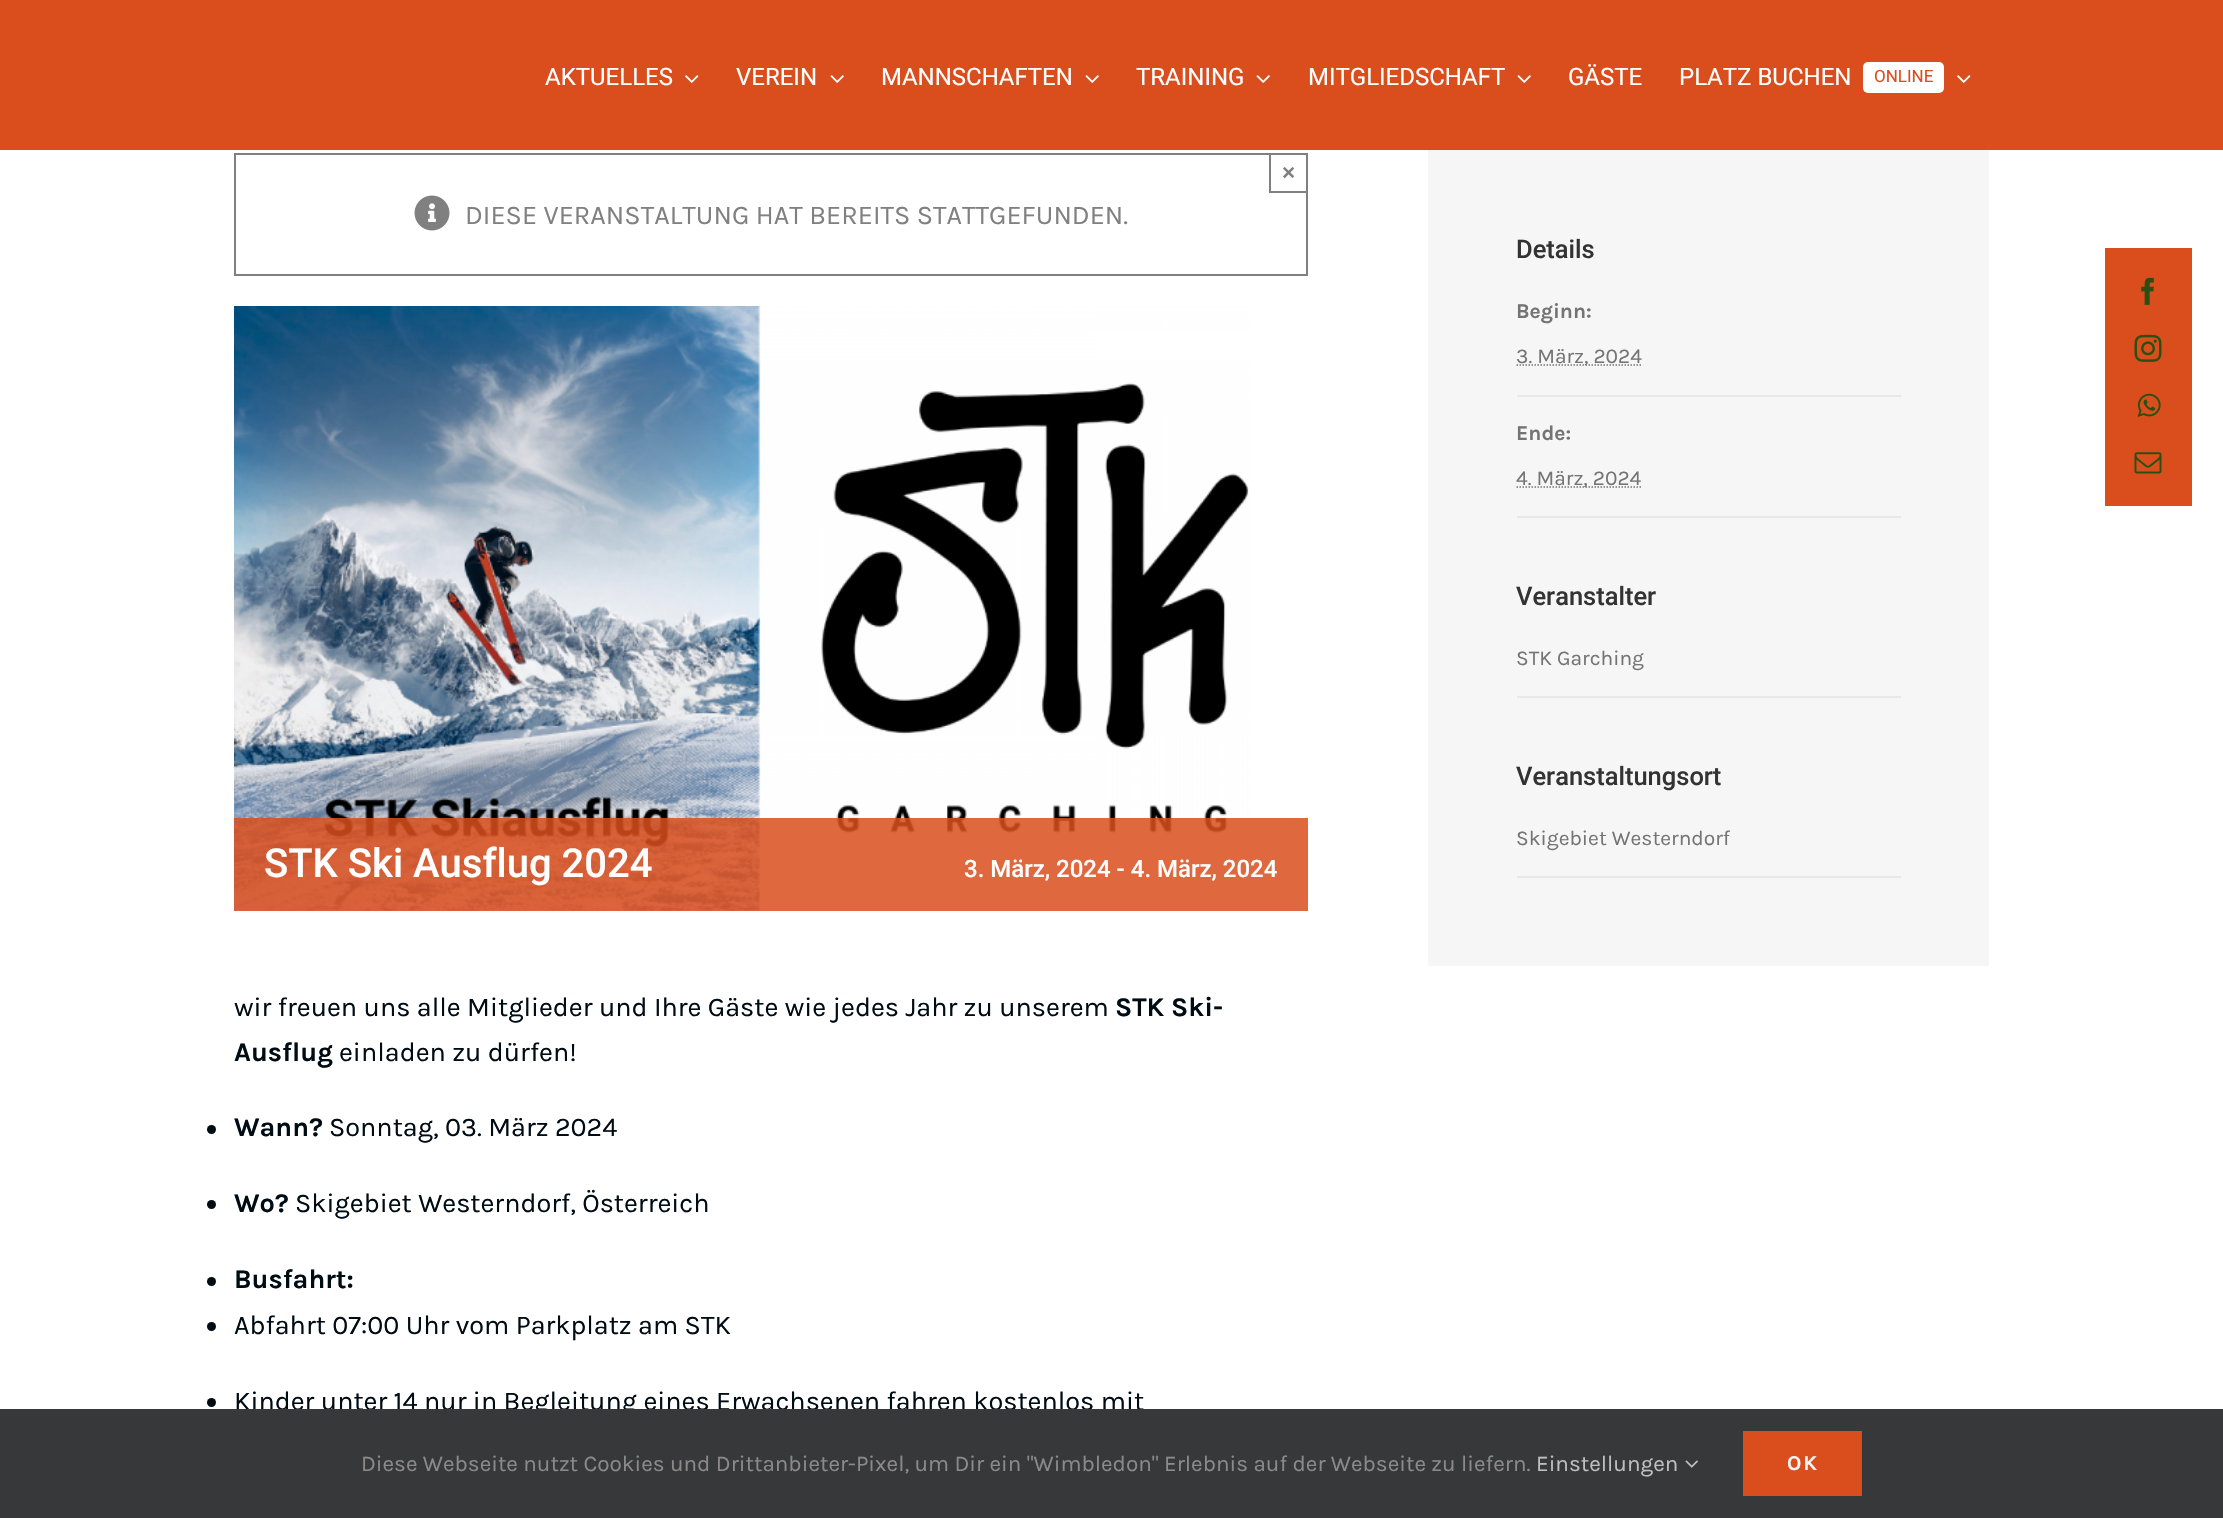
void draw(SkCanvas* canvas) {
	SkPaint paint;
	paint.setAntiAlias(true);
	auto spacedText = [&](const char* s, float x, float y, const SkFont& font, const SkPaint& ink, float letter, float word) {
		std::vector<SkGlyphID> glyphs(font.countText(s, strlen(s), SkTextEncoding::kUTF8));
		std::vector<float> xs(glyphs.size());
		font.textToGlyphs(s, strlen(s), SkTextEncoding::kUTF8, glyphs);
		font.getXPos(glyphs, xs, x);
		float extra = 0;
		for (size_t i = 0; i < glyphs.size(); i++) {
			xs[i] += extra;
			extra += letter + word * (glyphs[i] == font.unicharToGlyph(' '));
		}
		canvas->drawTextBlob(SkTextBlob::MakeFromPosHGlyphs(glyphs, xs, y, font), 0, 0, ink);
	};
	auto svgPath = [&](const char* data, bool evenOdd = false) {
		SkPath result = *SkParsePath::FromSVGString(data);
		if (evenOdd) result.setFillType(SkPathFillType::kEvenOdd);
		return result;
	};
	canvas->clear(0xffffffff);
	paint.setColor(0xffd94e1c);
	canvas->drawRect(SkRect::MakeXYWH(0, 0, 2223, 150), paint);
	SkFont f1(fontMgr->matchFamilyStyle("Roboto", SkFontStyle::Normal()), 24);
	f1.setSubpixel(true);
	paint.setColor(0xffffffff);
	canvas->drawString("AKTUELLES", 545, 85, f1, paint);
	canvas->drawImageRect(SkImages::DeferredFromEncodedData(SkData::MakeFromFileName("img1.png")), SkRect::MakeXYWH(685, 75, 14, 8), SkSamplingOptions());
	canvas->drawString("VEREIN", 736, 85, f1, paint);
	canvas->drawImageRect(SkImages::DeferredFromEncodedData(SkData::MakeFromFileName("img2.png")), SkRect::MakeXYWH(830, 75, 14, 8), SkSamplingOptions());
	canvas->drawString("MANNSCHAFTEN", 881, 85, f1, paint);
	canvas->drawImageRect(SkImages::DeferredFromEncodedData(SkData::MakeFromFileName("img2.png")), SkRect::MakeXYWH(1085, 75, 14, 8), SkSamplingOptions());
	canvas->drawString("TRAINING", 1136, 85, f1, paint);
	canvas->drawImageRect(SkImages::DeferredFromEncodedData(SkData::MakeFromFileName("img2.png")), SkRect::MakeXYWH(1256, 75, 14, 8), SkSamplingOptions());
	canvas->drawString("MITGLIEDSCHAFT", 1308, 85, f1, paint);
	canvas->drawImageRect(SkImages::DeferredFromEncodedData(SkData::MakeFromFileName("img2.png")), SkRect::MakeXYWH(1517, 75, 14, 8), SkSamplingOptions());
	canvas->drawString("GÄSTE", 1568, 85, f1, paint);
	canvas->drawString("PLATZ BUCHEN", 1679, 85, f1, paint);
	canvas->drawRoundRect(SkRect::MakeXYWH(1863, 62, 81, 31), 5, 5, paint);
	SkFont f2(fontMgr->matchFamilyStyle("Roboto", SkFontStyle::Normal()), 17);
	f2.setSubpixel(true);
	paint.setColor(0xffd94e1c);
	canvas->drawString("ONLINE", 1874, 82, f2, paint);
	canvas->drawImageRect(SkImages::DeferredFromEncodedData(SkData::MakeFromFileName("img1.png")), SkRect::MakeXYWH(1957, 75, 14, 8), SkSamplingOptions());
	canvas->drawRect(SkRect::MakeXYWH(2105, 248, 87, 258), paint);
	canvas->drawImageRect(SkImages::DeferredFromEncodedData(SkData::MakeFromFileName("img3.png")), SkRect::MakeXYWH(2141, 277, 13, 28), SkSamplingOptions());
	canvas->drawImageRect(SkImages::DeferredFromEncodedData(SkData::MakeFromFileName("img4.png")), SkRect::MakeXYWH(2134, 334, 28, 28), SkSamplingOptions());
	canvas->drawImageRect(SkImages::DeferredFromEncodedData(SkData::MakeFromFileName("img5.png")), SkRect::MakeXYWH(2137, 393, 24, 24), SkSamplingOptions());
	canvas->drawImageRect(SkImages::DeferredFromEncodedData(SkData::MakeFromFileName("img6.png")), SkRect::MakeXYWH(2134, 452, 28, 22), SkSamplingOptions());
	paint.setStroke(true);
	paint.setStrokeWidth(2);
	paint.setColor(0xff808080);
	canvas->drawRect(SkRect::MakeXYWH(235, 154, 1072, 121), paint);
	paint.setStroke(false);
	canvas->drawRect(SkRect::MakeXYWH(1269, 191, 39, 2), paint);
	canvas->drawRect(SkRect::MakeXYWH(1269, 153, 2, 39), paint);
	SkFont f3(fontMgr->matchFamilyStyle("Liberation Sans", SkFontStyle::Bold()), 22.5);
	f3.setSubpixel(true);
	canvas->drawString("×", 1282, 180, f3, paint);
	canvas->drawImageRect(SkImages::DeferredFromEncodedData(SkData::MakeFromFileName("img7.png")), SkRect::MakeXYWH(414, 195, 36, 36), SkSamplingOptions());
	SkFont f4(fontMgr->matchFamilyStyle("Karla", SkFontStyle::Normal()), 27);
	f4.setSubpixel(true);
	canvas->drawString("DIESE VERANSTALTUNG HAT BEREITS STATTGEFUNDEN.", 465, 224, f4, paint);
	canvas->drawImageRect(SkImages::DeferredFromEncodedData(SkData::MakeFromFileName("img8.png")), SkRect::MakeXYWH(234, 306, 1015, 605), SkSamplingOptions());
	paint.setColor(0xd9d94e1c);
	canvas->drawRect(SkRect::MakeXYWH(234, 818, 1074, 93), paint);
	SkFont f5(fontMgr->matchFamilyStyle("Roboto", SkFontStyle(500, SkFontStyle::kNormal_Width, SkFontStyle::kUpright_Slant)), 40);
	f5.setSubpixel(true);
	paint.setColor(0xffffffff);
	canvas->drawString("STK Ski Ausflug 2024", 264, 877, f5, paint);
	SkFont f6(fontMgr->matchFamilyStyle("Roboto", SkFontStyle(500, SkFontStyle::kNormal_Width, SkFontStyle::kUpright_Slant)), 24);
	f6.setSubpixel(true);
	canvas->drawString("3. März, 2024 - 4. März, 2024", 964, 877, f6, paint);
	paint.setColor(0xff000c14);
	canvas->drawString("wir freuen uns alle Mitglieder und Ihre Gäste wie jedes Jahr zu unserem", 234, 1016, f4, paint);
	SkFont f7(fontMgr->matchFamilyStyle("Karla", SkFontStyle::Bold()), 27);
	f7.setSubpixel(true);
	canvas->drawString("STK Ski-", 1115, 1016, f7, paint);
	canvas->drawString("Ausflug", 234, 1061, f7, paint);
	canvas->drawString("einladen zu dürfen!", 339, 1061, f4, paint);
	canvas->drawCircle(211.5, 1129.5, 4.5, paint);
	canvas->drawString("Wann?", 234, 1136, f7, paint);
	canvas->drawString("Sonntag, 03. März 2024", 329, 1136, f4, paint);
	canvas->drawCircle(211.5, 1204.5, 4.5, paint);
	canvas->drawString("Wo?", 234, 1212, f7, paint);
	canvas->drawString("Skigebiet Westerndorf, Österreich", 295, 1212, f4, paint);
	canvas->drawCircle(211.5, 1281.5, 4.5, paint);
	canvas->drawString("Busfahrt:", 234, 1288, f7, paint);
	canvas->drawCircle(211.5, 1326.5, 4.5, paint);
	canvas->drawString("Abfahrt 07:00 Uhr vom Parkplatz am STK", 234, 1334, f4, paint);
	canvas->drawCircle(211.5, 1402.5, 4.5, paint);
	canvas->drawString("Kinder unter 14 nur in Begleitung eines Erwachsenen fahren kostenlos mit", 234, 1410, f4, paint);
	paint.setColor(0xfff6f6f6);
	canvas->drawRect(SkRect::MakeXYWH(1428, 150, 561, 816), paint);
	SkFont f8(fontMgr->matchFamilyStyle("Roboto", SkFontStyle(500, SkFontStyle::kNormal_Width, SkFontStyle::kUpright_Slant)), 25.5);
	f8.setSubpixel(true);
	paint.setColor(0xff333333);
	canvas->drawString("Details", 1516, 258, f8, paint);
	SkFont f9(fontMgr->matchFamilyStyle("Karla", SkFontStyle::Bold()), 21);
	f9.setSubpixel(true);
	paint.setColor(0xff747474);
	canvas->drawString("Beginn:", 1516, 318, f9, paint);
	paint.setColor(0xffe8e8e8);
	canvas->drawRect(SkRect::MakeXYWH(1517, 395, 384, 2), paint);
	paint.setStroke(true);
	paint.setStrokeWidth(1.5);
	paint.setColor(0xff747474);
	paint.setPathEffect(SkDashPathEffect::Make({{1.5f, 1.5f}}, 0));
	canvas->drawPath(svgPath("M1516.5 365H1642.5"), paint);
	paint.setPathEffect(nullptr);
	SkFont f10(fontMgr->matchFamilyStyle("Karla", SkFontStyle::Normal()), 21);
	f10.setSubpixel(true);
	paint.setStroke(false);
	canvas->drawString("3. März, 2024", 1516, 363, f10, paint);
	canvas->drawString("Ende:", 1516, 440, f9, paint);
	paint.setColor(0xffe8e8e8);
	canvas->drawRect(SkRect::MakeXYWH(1517, 516, 384, 2), paint);
	paint.setStroke(true);
	paint.setColor(0xff747474);
	paint.setPathEffect(SkDashPathEffect::Make({{1.5f, 1.5f}}, 0));
	canvas->drawPath(svgPath("M1516.5 487H1641.5"), paint);
	paint.setPathEffect(nullptr);
	paint.setStroke(false);
	canvas->drawString("4. März, 2024", 1516, 485, f10, paint);
	paint.setColor(0xff333333);
	canvas->drawString("Veranstalter", 1516, 605, f8, paint);
	paint.setColor(0xffe8e8e8);
	canvas->drawRect(SkRect::MakeXYWH(1517, 696, 384, 2), paint);
	paint.setColor(0xff747474);
	canvas->drawString("STK Garching", 1516, 665, f10, paint);
	paint.setColor(0xff333333);
	canvas->drawString("Veranstaltungsort", 1516, 785, f8, paint);
	paint.setColor(0xffe8e8e8);
	canvas->drawRect(SkRect::MakeXYWH(1517, 876, 384, 2), paint);
	paint.setColor(0xff747474);
	canvas->drawString("Skigebiet Westerndorf", 1516, 845, f10, paint);
	paint.setColor(0xff363839);
	canvas->drawRect(SkRect::MakeXYWH(0, 1409, 2223, 109), paint);
	SkFont f11(fontMgr->matchFamilyStyle("Karla", SkFontStyle::Normal()), 22.5);
	f11.setSubpixel(true);
	paint.setColor(0xff8c8989);
	canvas->drawString("Diese Webseite nutzt Cookies und Drittanbieter-Pixel, um Dir ein \"Wimbledon\" Erlebnis auf der Webseite zu liefern.", 361, 1471, f11, paint);
	paint.setColor(0xffbfbfbf);
	canvas->drawString("Einstellungen", 1536, 1471, f11, paint);
	canvas->drawImageRect(SkImages::DeferredFromEncodedData(SkData::MakeFromFileName("img9.png")), SkRect::MakeXYWH(1685, 1460, 13, 8), SkSamplingOptions());
	paint.setColor(0xffd94e1c);
	canvas->drawRect(SkRect::MakeXYWH(1743, 1431, 119, 65), paint);
	paint.setColor(0xfff4f4f4);
	spacedText("OK", 1787, 1470, f9, paint, 2, 0);
}
